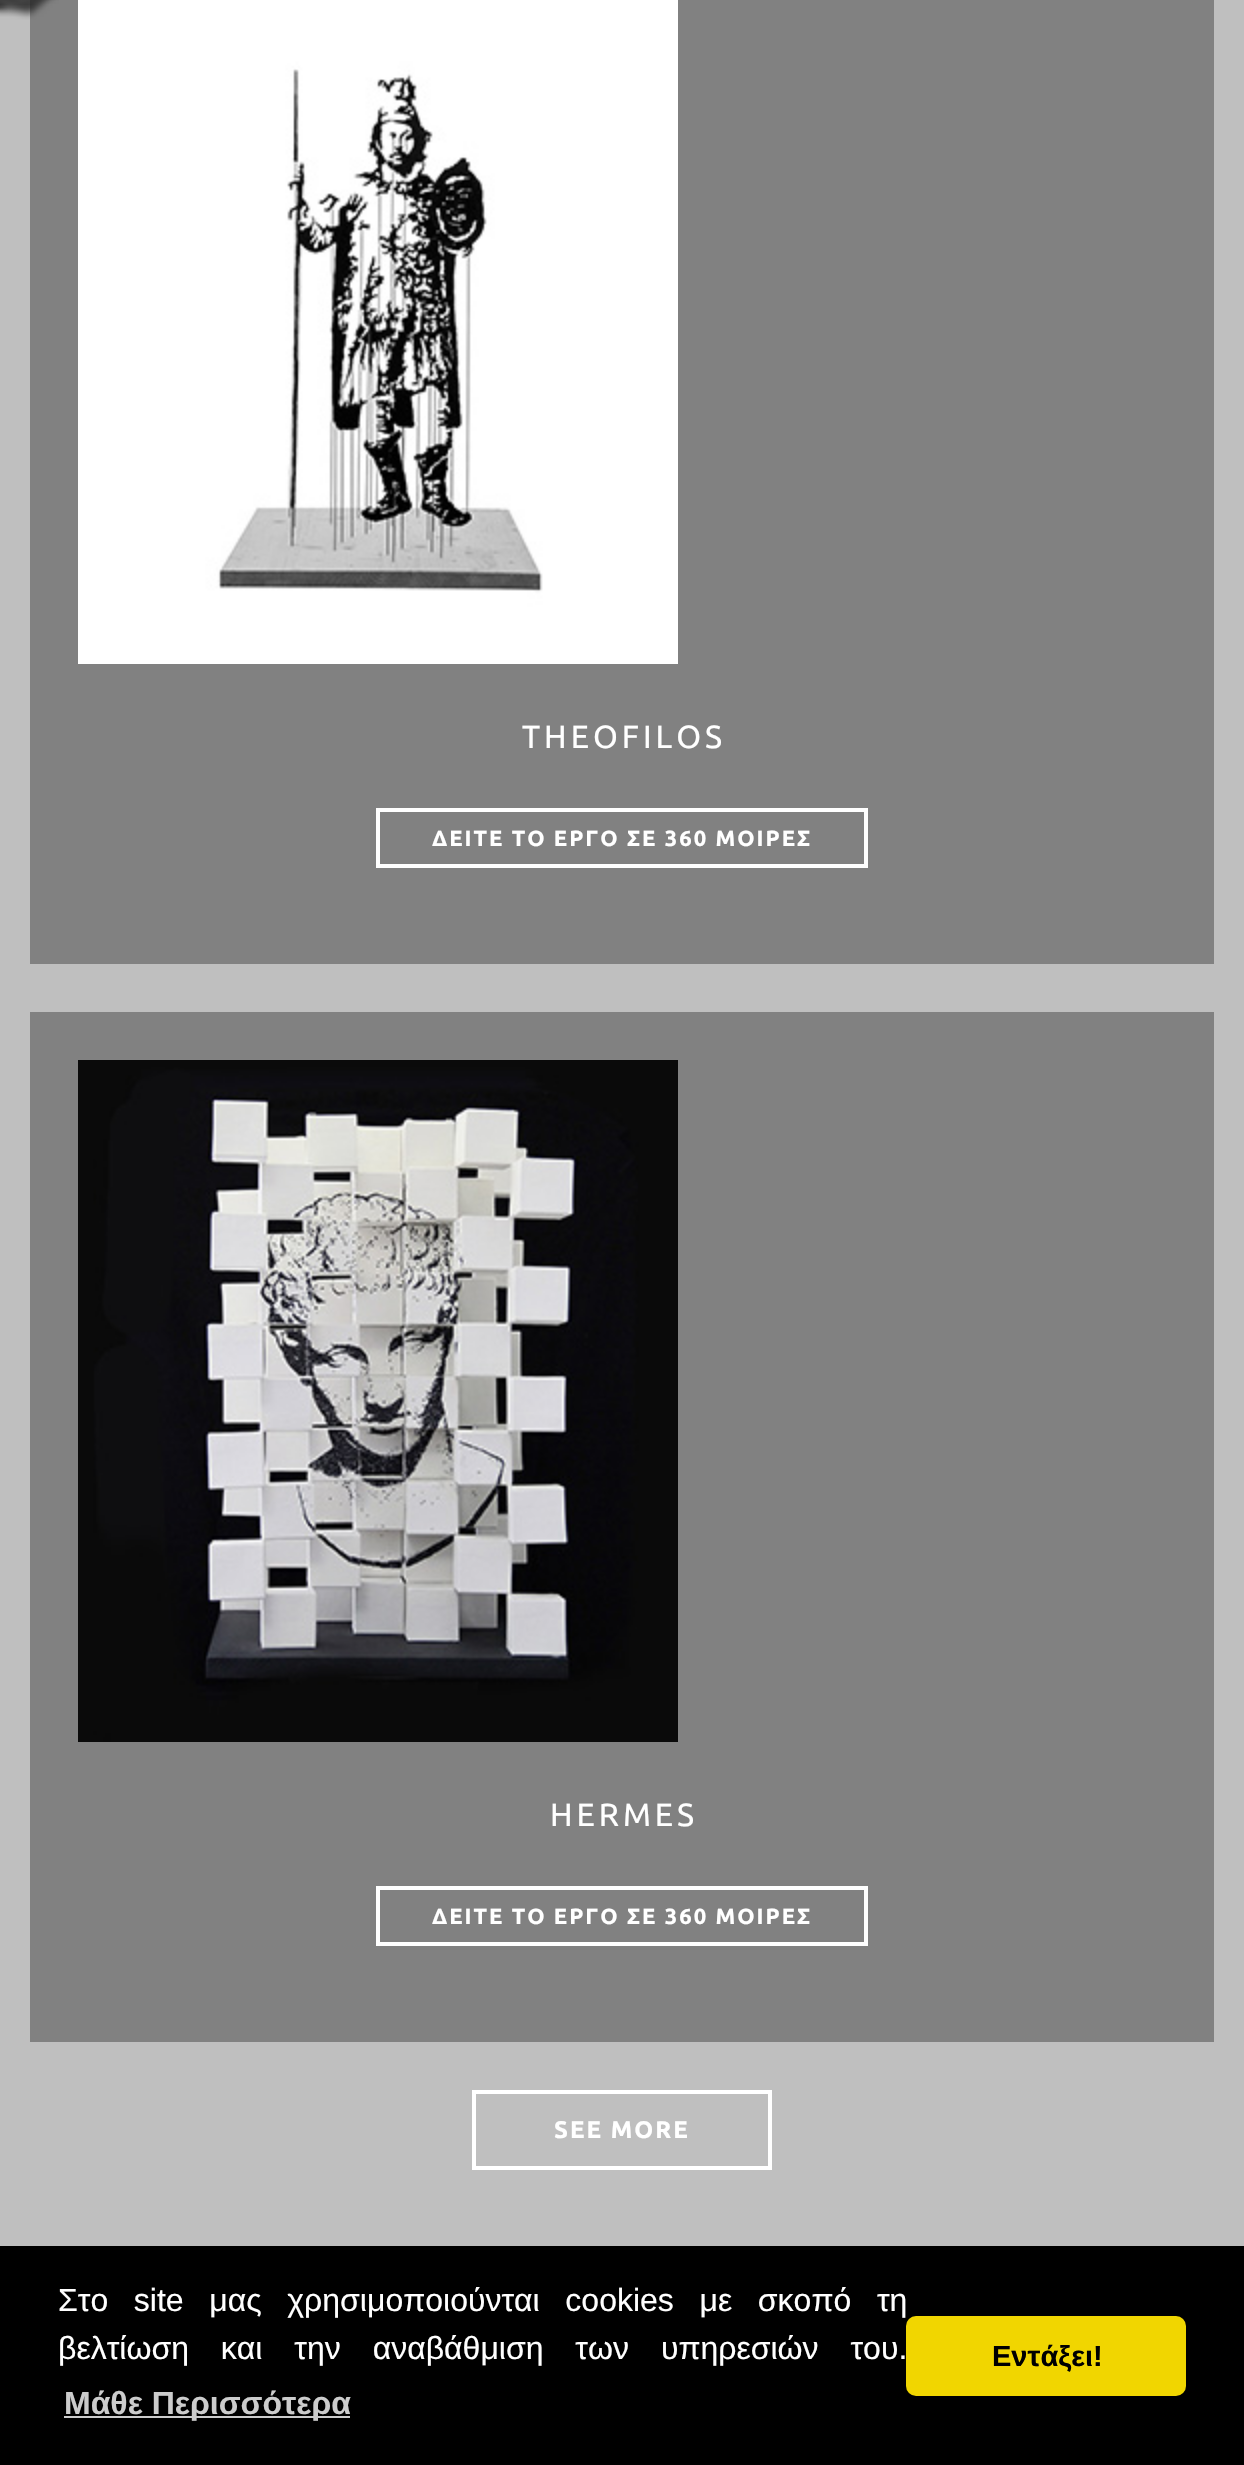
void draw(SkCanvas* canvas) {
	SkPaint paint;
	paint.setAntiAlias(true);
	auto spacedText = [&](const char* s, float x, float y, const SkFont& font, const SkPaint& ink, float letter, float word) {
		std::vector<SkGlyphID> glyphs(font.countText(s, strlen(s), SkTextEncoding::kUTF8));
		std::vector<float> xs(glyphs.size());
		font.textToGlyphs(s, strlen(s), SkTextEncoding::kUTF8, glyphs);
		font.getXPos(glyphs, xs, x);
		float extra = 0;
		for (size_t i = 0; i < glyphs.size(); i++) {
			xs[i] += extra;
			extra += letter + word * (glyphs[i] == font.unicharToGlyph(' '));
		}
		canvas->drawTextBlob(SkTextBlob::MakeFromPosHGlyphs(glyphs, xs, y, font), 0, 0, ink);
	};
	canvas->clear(0xffbfbfbf);
	canvas->drawImageRect(SkImages::DeferredFromEncodedData(SkData::MakeFromFileName("img1.png")), SkRect::MakeXYWH(0, 0, 59, 20), SkSamplingOptions());
	paint.setColor(0x66222222);
	canvas->drawRect(SkRect::MakeXYWH(30, 0, 1184, 964), paint);
	canvas->drawImageRect(SkImages::DeferredFromEncodedData(SkData::MakeFromFileName("img2.png")), SkRect::MakeXYWH(78, 0, 600, 664), SkSamplingOptions());
	SkFont f1(fontMgr->matchFamilyStyle("Ubuntu", SkFontStyle::Normal()), 32);
	f1.setSubpixel(true);
	paint.setColor(0xffffffff);
	spacedText("THEOFILOS", 522, 748, f1, paint, 4, 0);
	paint.setStroke(true);
	paint.setStrokeWidth(4);
	canvas->drawRect(SkRect::MakeXYWH(378, 810, 488, 56), paint);
	SkFont f2(fontMgr->matchFamilyStyle("Ubuntu", SkFontStyle::Bold()), 22);
	f2.setSubpixel(true);
	paint.setStroke(false);
	spacedText("ΔΕΙΤΕ ΤΟ ΕΡΓΟ ΣΕ 360 ΜΟΙΡΕΣ", 432, 846, f2, paint, 2, 0);
	paint.setColor(0xff818181);
	canvas->drawRect(SkRect::MakeXYWH(30, 1012, 1184, 1030), paint);
	canvas->drawImageRect(SkImages::DeferredFromEncodedData(SkData::MakeFromFileName("img3.png")), SkRect::MakeXYWH(78, 1060, 600, 682), SkSamplingOptions());
	paint.setColor(0xffffffff);
	spacedText("HERMES", 550, 1826, f1, paint, 4, 0);
	paint.setStroke(true);
	canvas->drawRect(SkRect::MakeXYWH(378, 1888, 488, 56), paint);
	paint.setStroke(false);
	spacedText("ΔΕΙΤΕ ΤΟ ΕΡΓΟ ΣΕ 360 ΜΟΙΡΕΣ", 432, 1924, f2, paint, 2, 0);
	paint.setStroke(true);
	canvas->drawRect(SkRect::MakeXYWH(474, 2092, 296, 76), paint);
	SkFont f3(fontMgr->matchFamilyStyle("Ubuntu", SkFontStyle::Bold()), 24);
	f3.setSubpixel(true);
	paint.setStroke(false);
	spacedText("SEE MORE", 554, 2138, f3, paint, 2, 0);
	paint.setColor(0xff000000);
	canvas->drawRect(SkRect::MakeXYWH(0, 2246, 1244, 219), paint);
	SkFont f4(fontMgr->matchFamilyStyle("Liberation Sans", SkFontStyle::Normal()), 32);
	f4.setSubpixel(true);
	paint.setColor(0xffffffff);
	spacedText("Στο site μας χρησιμοποιούνται cookies με σκοπό τη", 58, 2311, f4, paint, 0, 16.75);
	spacedText("βελτίωση και την αναβάθμιση των υπηρεσιών του.", 58, 2359, f4, paint, 0, 23);
	paint.setColor(0xffcccccc);
	canvas->drawRect(SkRect::MakeXYWH(64, 2416, 286, 2), paint);
	SkFont f5(fontMgr->matchFamilyStyle("Liberation Sans", SkFontStyle::Bold()), 32);
	f5.setSubpixel(true);
	canvas->drawString("Μάθε Περισσότερα", 64, 2414, f5, paint);
	paint.setColor(0xfff1d600);
	canvas->drawRoundRect(SkRect::MakeXYWH(906, 2316, 280, 80), 10, 10, paint);
	SkFont f6(fontMgr->matchFamilyStyle("Liberation Sans", SkFontStyle::Bold()), 29);
	f6.setSubpixel(true);
	paint.setColor(0xff000000);
	canvas->drawString("Εντάξει!", 992, 2366, f6, paint);
}
